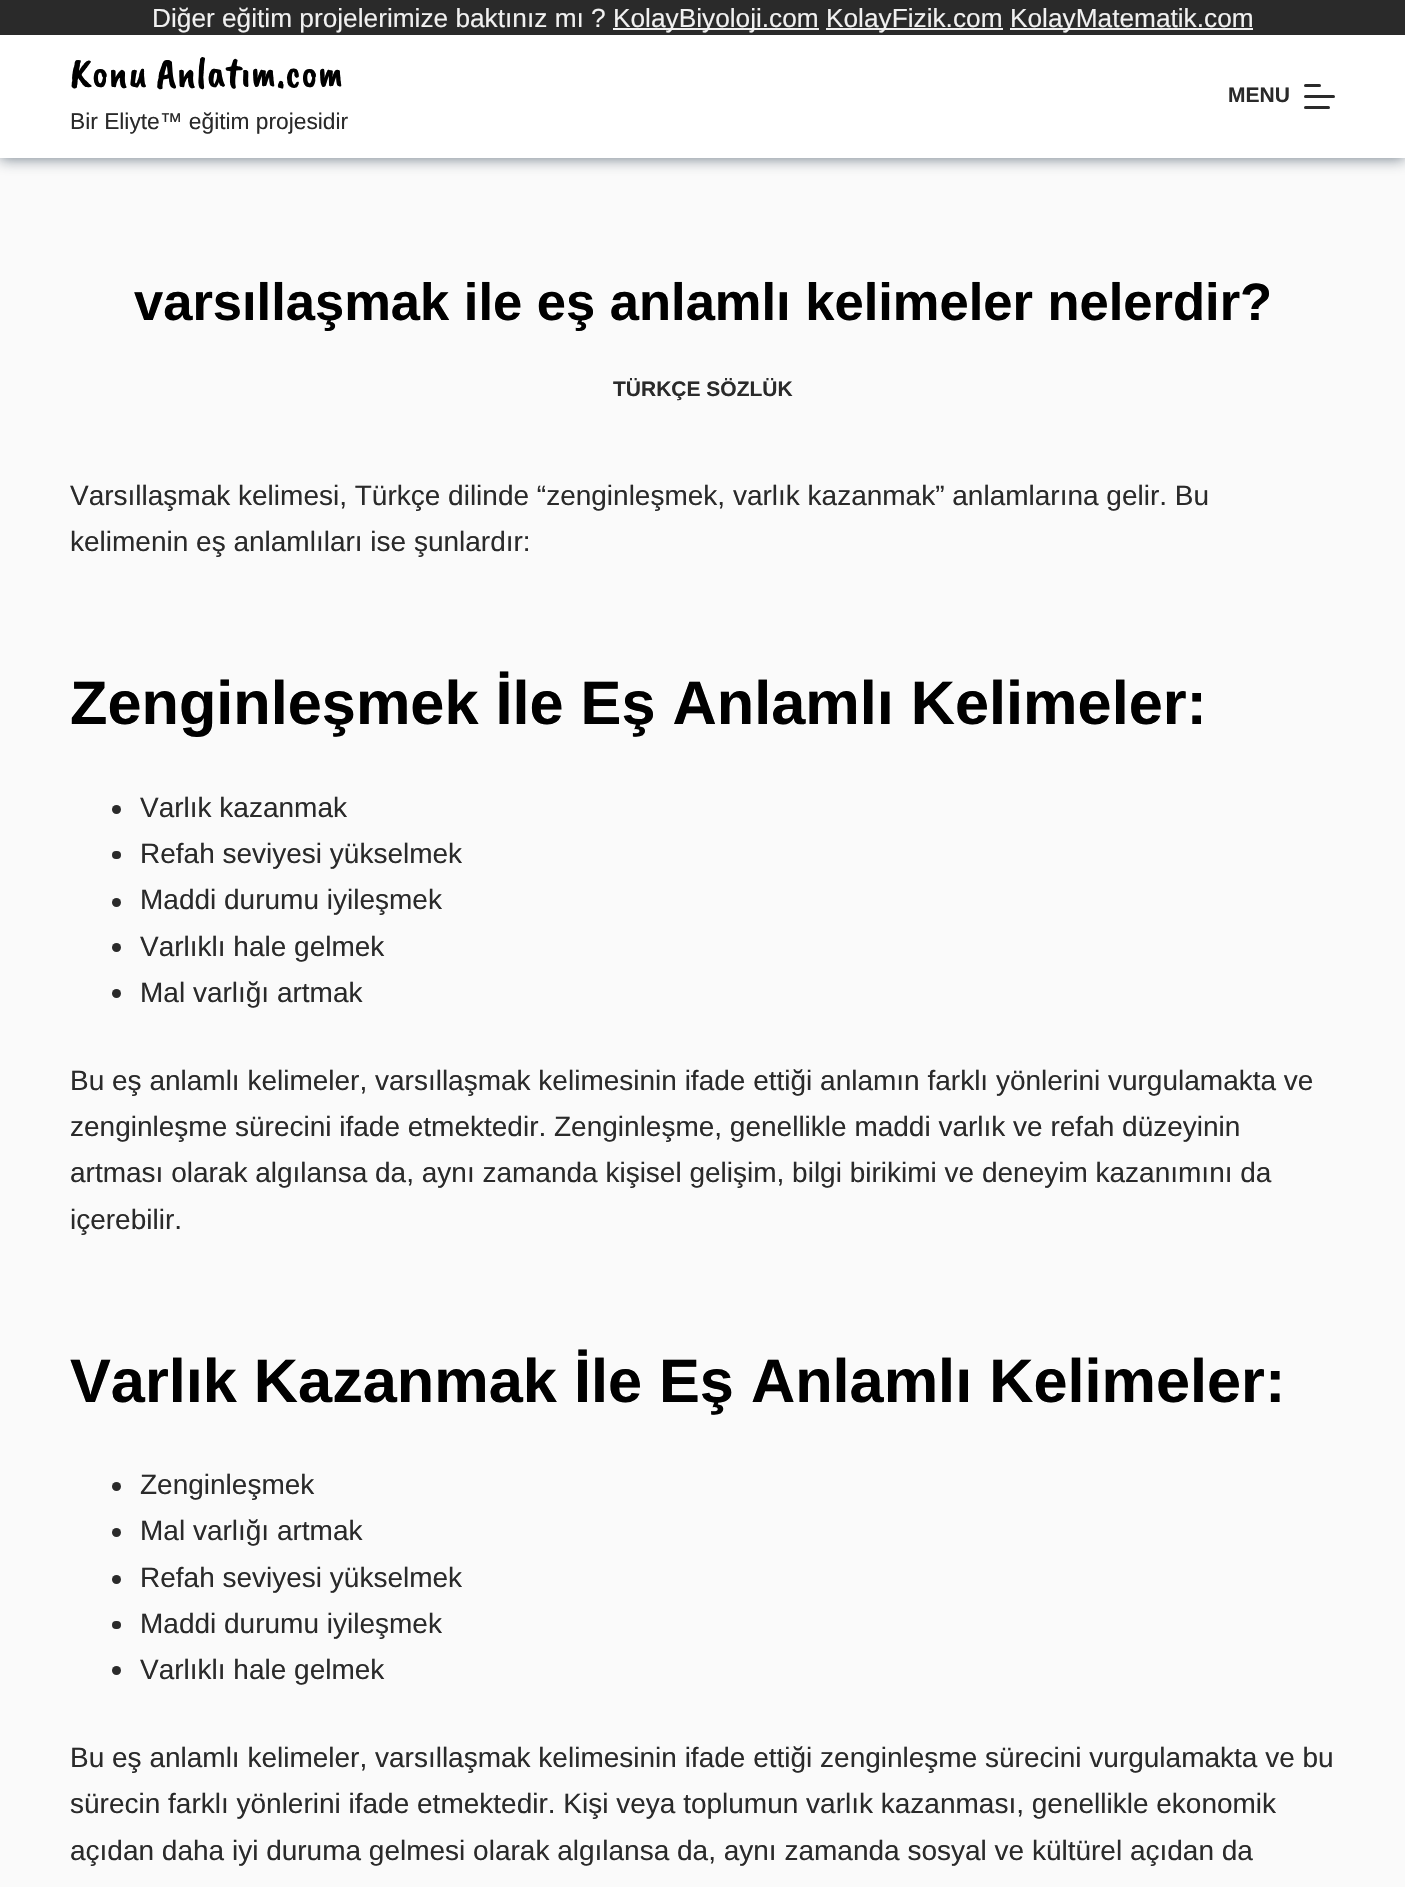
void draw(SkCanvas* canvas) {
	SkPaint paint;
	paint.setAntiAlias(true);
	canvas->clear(0xfffafafa);
	paint.setColor(0xa32b3d4f);
	paint.setMaskFilter(SkMaskFilter::MakeBlur(kNormal_SkBlurStyle, 7));
	canvas->drawRect(SkRect::MakeXYWH(0, 37, 1405, 122), paint);
	paint.setMaskFilter(nullptr);
	paint.setColor(0xff2a2a2a);
	canvas->drawRect(SkRect::MakeXYWH(0, 0, 1405, 35), paint);
	SkFont f1(fontMgr->matchFamilyStyle("Liberation Sans", SkFontStyle::Normal()), 26.25);
	f1.setSubpixel(true);
	paint.setColor(0xfff1f1f1);
	canvas->drawString("Diğer eğitim projelerimize baktınız mı ?", 152, 27, f1, paint);
	canvas->drawRect(SkRect::MakeXYWH(613, 28, 206, 2), paint);
	canvas->drawString("KolayBiyoloji.com", 613, 27, f1, paint);
	canvas->drawRect(SkRect::MakeXYWH(826, 28, 177, 2), paint);
	canvas->drawString("KolayFizik.com", 826, 27, f1, paint);
	canvas->drawRect(SkRect::MakeXYWH(1010, 28, 243, 2), paint);
	canvas->drawString("KolayMatematik.com", 1010, 27, f1, paint);
	paint.setColor(0xffffffff);
	canvas->drawRect(SkRect::MakeXYWH(0, 35, 1405, 123), paint);
	SkFont f2(fontMgr->matchFamilyStyle("Caveat Brush", SkFontStyle::Normal()), 43.75);
	f2.setSubpixel(true);
	paint.setColor(0xff000000);
	canvas->drawString("Konu Anlatım.com", 70, 87, f2, paint);
	SkFont f3(fontMgr->matchFamilyStyle("Liberation Sans", SkFontStyle::Normal()), 22.75);
	f3.setSubpixel(true);
	paint.setColor(0xff2a2a2a);
	canvas->drawString("Bir Eliyte™ eğitim projesidir", 70, 129, f3, paint);
	SkFont f4(fontMgr->matchFamilyStyle("Liberation Sans", SkFontStyle::Bold()), 21);
	f4.setSubpixel(true);
	canvas->drawString("MENU", 1228, 102, f4, paint);
	canvas->drawRoundRect(SkRect::MakeXYWH(1304, 84, 17, 3), 1.5, 1.5, paint);
	canvas->drawRoundRect(SkRect::MakeXYWH(1304, 95, 31, 3), 1.5, 1.5, paint);
	canvas->drawRoundRect(SkRect::MakeXYWH(1304, 106, 26, 3), 1.5, 1.5, paint);
	SkFont f5(fontMgr->matchFamilyStyle("Liberation Sans", SkFontStyle::Bold()), 52.5);
	f5.setSubpixel(true);
	paint.setColor(0xff000000);
	canvas->drawString("varsıllaşmak ile eş anlamlı kelimeler nelerdir?", 134, 320, f5, paint);
	paint.setColor(0xff2a2a2a);
	canvas->drawString("TÜRKÇE SÖZLÜK", 613, 396, f4, paint);
	SkFont f6(fontMgr->matchFamilyStyle("Liberation Sans", SkFontStyle::Normal()), 28);
	f6.setSubpixel(true);
	canvas->drawString("Varsıllaşmak kelimesi, Türkçe dilinde “zenginleşmek, varlık kazanmak” anlamlarına gelir. Bu", 70, 505, f6, paint);
	canvas->drawString("kelimenin eş anlamlıları ise şunlardır:", 70, 551, f6, paint);
	SkFont f7(fontMgr->matchFamilyStyle("Liberation Sans", SkFontStyle::Bold()), 61.25);
	f7.setSubpixel(true);
	paint.setColor(0xff000000);
	canvas->drawString("Zenginleşmek İle Eş Anlamlı Kelimeler:", 70, 724, f7, paint);
	paint.setColor(0xff2a2a2a);
	canvas->drawCircle(116.5, 809.5, 4.5, paint);
	canvas->drawString("Varlık kazanmak", 140, 817, f6, paint);
	canvas->drawRoundRect(SkRect::MakeXYWH(112, 851, 9, 8), 4, 4, paint);
	canvas->drawString("Refah seviyesi yükselmek", 140, 863, f6, paint);
	canvas->drawCircle(116.5, 902.5, 4.5, paint);
	canvas->drawString("Maddi durumu iyileşmek", 140, 909, f6, paint);
	canvas->drawCircle(116.5, 947.5, 4.5, paint);
	canvas->drawString("Varlıklı hale gelmek", 140, 956, f6, paint);
	canvas->drawCircle(116.5, 993.5, 4.5, paint);
	canvas->drawString("Mal varlığı artmak", 140, 1002, f6, paint);
	canvas->drawString("Bu eş anlamlı kelimeler, varsıllaşmak kelimesinin ifade ettiği anlamın farklı yönlerini vurgulamakta ve", 70, 1090, f6, paint);
	canvas->drawString("zenginleşme sürecini ifade etmektedir. Zenginleşme, genellikle maddi varlık ve refah düzeyinin", 70, 1136, f6, paint);
	canvas->drawString("artması olarak algılansa da, aynı zamanda kişisel gelişim, bilgi birikimi ve deneyim kazanımını da", 70, 1182, f6, paint);
	canvas->drawString("içerebilir.", 70, 1229, f6, paint);
	paint.setColor(0xff000000);
	canvas->drawString("Varlık Kazanmak İle Eş Anlamlı Kelimeler:", 70, 1402, f7, paint);
	paint.setColor(0xff2a2a2a);
	canvas->drawCircle(116.5, 1486.5, 4.5, paint);
	canvas->drawString("Zenginleşmek", 140, 1494, f6, paint);
	canvas->drawCircle(116.5, 1532.5, 4.5, paint);
	canvas->drawString("Mal varlığı artmak", 140, 1540, f6, paint);
	canvas->drawCircle(116.5, 1579.5, 4.5, paint);
	canvas->drawString("Refah seviyesi yükselmek", 140, 1587, f6, paint);
	canvas->drawRoundRect(SkRect::MakeXYWH(112, 1621, 9, 8), 4, 4, paint);
	canvas->drawString("Maddi durumu iyileşmek", 140, 1633, f6, paint);
	canvas->drawCircle(116.5, 1670.5, 4.5, paint);
	canvas->drawString("Varlıklı hale gelmek", 140, 1679, f6, paint);
	canvas->drawString("Bu eş anlamlı kelimeler, varsıllaşmak kelimesinin ifade ettiği zenginleşme sürecini vurgulamakta ve bu", 70, 1767, f6, paint);
	canvas->drawString("sürecin farklı yönlerini ifade etmektedir. Kişi veya toplumun varlık kazanması, genellikle ekonomik", 70, 1813, f6, paint);
	canvas->drawString("açıdan daha iyi duruma gelmesi olarak algılansa da, aynı zamanda sosyal ve kültürel açıdan da", 70, 1860, f6, paint);
}
